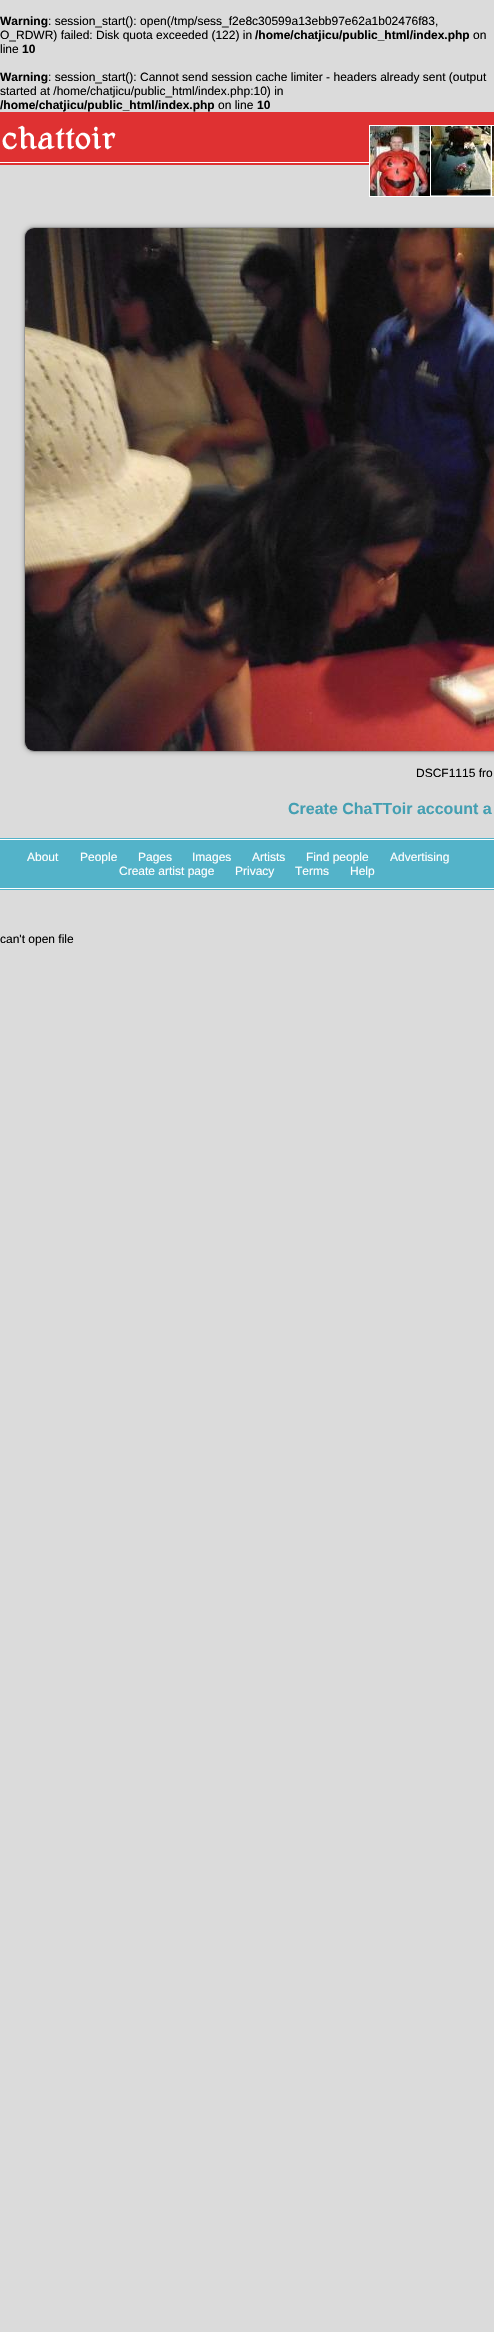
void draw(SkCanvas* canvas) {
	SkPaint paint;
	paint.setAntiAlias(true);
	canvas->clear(0xffdbdbdb);
	SkFont f1(fontMgr->matchFamilyStyle("Liberation Sans", SkFontStyle::Bold()), 12);
	f1.setSubpixel(true);
	paint.setColor(0xff000000);
	canvas->drawString("Warning", 0, 25, f1, paint);
	SkFont f2(fontMgr->matchFamilyStyle("Liberation Sans", SkFontStyle::Normal()), 12);
	f2.setSubpixel(true);
	canvas->drawString(": session_start(): open(/tmp/sess_f2e8c30599a13ebb97e62a1b02476f83,", 48, 25, f2, paint);
	canvas->drawString("O_RDWR) failed: Disk quota exceeded (122) in", 0, 39, f2, paint);
	canvas->drawString("/home/chatjicu/public_html/index.php", 255, 39, f1, paint);
	canvas->drawString("on", 473, 39, f2, paint);
	canvas->drawString("line", 0, 53, f2, paint);
	canvas->drawString("10", 22, 53, f1, paint);
	canvas->drawString("Warning", 0, 81, f1, paint);
	canvas->drawString(": session_start(): Cannot send session cache limiter - headers already sent (output", 48, 81, f2, paint);
	canvas->drawString("started at /home/chatjicu/public_html/index.php:10) in", 0, 95, f2, paint);
	canvas->drawString("/home/chatjicu/public_html/index.php", 0, 109, f1, paint);
	canvas->drawString("on line", 218, 109, f2, paint);
	canvas->drawString("10", 257, 109, f1, paint);
	paint.setColor(0xffdf3132);
	canvas->drawRect(SkRect::MakeXYWH(0, 112, 494, 50), paint);
	paint.setColor(0xffffffff);
	canvas->drawRect(SkRect::MakeXYWH(0, 162, 369, 1), paint);
	canvas->drawImageRect(SkImages::DeferredFromEncodedData(SkData::MakeFromFileName("img1.png")), SkRect::MakeXYWH(2, 125, 114, 25), SkSamplingOptions());
	paint.setColor(0xffdf3132);
	canvas->drawRect(SkRect::MakeXYWH(0, 163, 369, 2), paint);
	paint.setColor(0xff53b3c9);
	canvas->drawRect(SkRect::MakeXYWH(0, 838, 494, 1), paint);
	paint.setColor(0xffffffff);
	canvas->drawRect(SkRect::MakeXYWH(369, 125, 125, 1), paint);
	canvas->drawRect(SkRect::MakeXYWH(369, 196, 125, 1), paint);
	canvas->drawRect(SkRect::MakeXYWH(491, 125, 1, 72), paint);
	canvas->drawImageRect(SkImages::DeferredFromEncodedData(SkData::MakeFromFileName("img2.png")), SkRect::MakeXYWH(492, 126, 2, 70), SkSamplingOptions());
	canvas->drawRect(SkRect::MakeXYWH(369, 125, 1, 72), paint);
	canvas->drawImageRect(SkImages::DeferredFromEncodedData(SkData::MakeFromFileName("img3.png")), SkRect::MakeXYWH(370, 126, 60, 70), SkSamplingOptions());
	canvas->drawRect(SkRect::MakeXYWH(430, 125, 1, 72), paint);
	canvas->drawImageRect(SkImages::DeferredFromEncodedData(SkData::MakeFromFileName("img4.png")), SkRect::MakeXYWH(431, 126, 60, 70), SkSamplingOptions());
	paint.setColor(0xff989898);
	paint.setMaskFilter(SkMaskFilter::MakeBlur(kNormal_SkBlurStyle, 2.5));
	canvas->drawRoundRect(SkRect::MakeXYWH(24, 227, 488, 525), 10, 10, paint);
	paint.setMaskFilter(nullptr);
	paint.setStroke(true);
	paint.setStrokeWidth(1);
	canvas->drawRoundRect(SkRect::MakeXYWH(24.5, 227.5, 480, 524), 9.5, 9.5, paint);
	canvas->drawImageRect(SkImages::DeferredFromEncodedData(SkData::MakeFromFileName("img5.png")), SkRect::MakeXYWH(25, 228, 469, 523), SkSamplingOptions());
	paint.setStroke(false);
	paint.setColor(0xff000000);
	canvas->drawString("DSCF1115 fro", 416, 777, f2, paint);
	SkFont f3(fontMgr->matchFamilyStyle("Liberation Sans", SkFontStyle::Bold()), 16);
	f3.setSubpixel(true);
	paint.setColor(0xff449fb2);
	canvas->drawString("Create ChaTToir account a", 288, 814, f3, paint);
	paint.setColor(0xff53b3c9);
	canvas->drawRect(SkRect::MakeXYWH(0, 840, 494, 48), paint);
	paint.setColor(0xffffffff);
	canvas->drawRect(SkRect::MakeXYWH(0, 839, 494, 1), paint);
	canvas->drawRect(SkRect::MakeXYWH(0, 888, 494, 1), paint);
	canvas->drawString("About", 27, 861, f2, paint);
	canvas->drawString("People", 80, 861, f2, paint);
	canvas->drawString("Pages", 138, 861, f2, paint);
	canvas->drawString("Images", 192, 861, f2, paint);
	canvas->drawString("Artists", 252, 861, f2, paint);
	canvas->drawString("Find people", 306, 861, f2, paint);
	canvas->drawString("Advertising", 390, 861, f2, paint);
	canvas->drawString("Create artist page", 119, 875, f2, paint);
	canvas->drawString("Privacy", 235, 875, f2, paint);
	canvas->drawString("Terms", 295, 875, f2, paint);
	canvas->drawString("Help", 350, 875, f2, paint);
	paint.setColor(0xff53b3c9);
	canvas->drawRect(SkRect::MakeXYWH(0, 889, 494, 1), paint);
	paint.setColor(0xff000000);
	canvas->drawString("can't open file", 0, 943, f2, paint);
}
